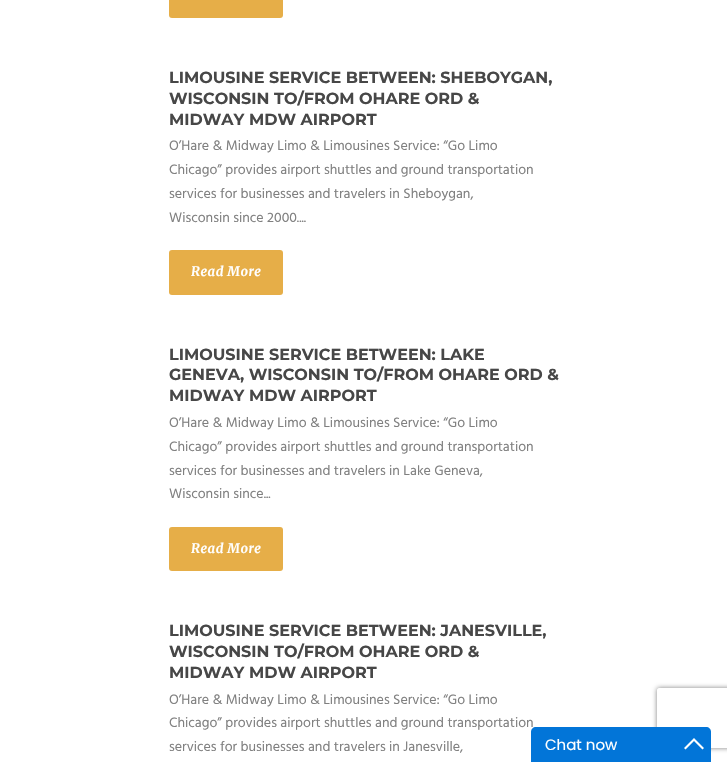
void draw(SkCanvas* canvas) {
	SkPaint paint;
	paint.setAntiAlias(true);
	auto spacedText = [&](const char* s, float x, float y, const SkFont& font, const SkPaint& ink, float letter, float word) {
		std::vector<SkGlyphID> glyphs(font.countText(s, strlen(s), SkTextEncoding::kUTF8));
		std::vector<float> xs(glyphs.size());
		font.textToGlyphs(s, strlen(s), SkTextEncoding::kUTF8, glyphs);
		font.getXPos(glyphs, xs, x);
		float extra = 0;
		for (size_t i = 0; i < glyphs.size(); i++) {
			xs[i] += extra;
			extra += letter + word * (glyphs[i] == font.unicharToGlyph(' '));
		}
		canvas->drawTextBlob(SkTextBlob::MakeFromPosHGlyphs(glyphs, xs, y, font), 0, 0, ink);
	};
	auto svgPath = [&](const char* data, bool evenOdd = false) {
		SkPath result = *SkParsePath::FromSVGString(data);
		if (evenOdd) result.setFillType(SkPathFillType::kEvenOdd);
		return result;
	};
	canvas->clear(0xffffffff);
	paint.setColor(0xffe6ae48);
	canvas->drawRoundRect(SkRect::MakeXYWH(169, -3, 114, 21), 3, 3, paint);
	SkFont f1(fontMgr->matchFamilyStyle("Montserrat", SkFontStyle::Bold()), 16);
	f1.setSubpixel(true);
	paint.setColor(0xff474747);
	canvas->drawString("LIMOUSINE SERVICE BETWEEN: SHEBOYGAN,", 169, 83, f1, paint);
	canvas->drawString("WISCONSIN TO/FROM OHARE ORD &", 169, 104, f1, paint);
	canvas->drawString("MIDWAY MDW AIRPORT", 169, 125, f1, paint);
	SkFont f2(fontMgr->matchFamilyStyle("Hind", SkFontStyle::Normal()), 14);
	f2.setSubpixel(true);
	paint.setColor(0xff808080);
	canvas->drawString("O’Hare & Midway Limo & Limousines Service: “Go Limo", 169, 150, f2, paint);
	canvas->drawString("Chicago” provides airport shuttles and ground transportation", 169, 174, f2, paint);
	canvas->drawString("services for businesses and travelers in Sheboygan,", 169, 198, f2, paint);
	canvas->drawString("Wisconsin since 2000....", 169, 222, f2, paint);
	paint.setColor(0xffe6ae48);
	canvas->drawRoundRect(SkRect::MakeXYWH(169, 250, 114, 45), 3, 3, paint);
	SkFont f3(fontMgr->matchFamilyStyle("Merriweather", SkFontStyle::BoldItalic()), 13);
	f3.setSubpixel(true);
	paint.setColor(0xffffffff);
	spacedText("Read More", 191, 276, f3, paint, 0.5, 0);
	paint.setColor(0xff474747);
	canvas->drawString("LIMOUSINE SERVICE BETWEEN: LAKE", 169, 360, f1, paint);
	canvas->drawString("GENEVA, WISCONSIN TO/FROM OHARE ORD &", 169, 380, f1, paint);
	canvas->drawString("MIDWAY MDW AIRPORT", 169, 401, f1, paint);
	paint.setColor(0xff808080);
	canvas->drawString("O’Hare & Midway Limo & Limousines Service: “Go Limo", 169, 427, f2, paint);
	canvas->drawString("Chicago” provides airport shuttles and ground transportation", 169, 451, f2, paint);
	canvas->drawString("services for businesses and travelers in Lake Geneva,", 169, 475, f2, paint);
	canvas->drawString("Wisconsin since...", 169, 498, f2, paint);
	paint.setColor(0xffe6ae48);
	canvas->drawRoundRect(SkRect::MakeXYWH(169, 527, 114, 44), 3, 3, paint);
	paint.setColor(0xffffffff);
	spacedText("Read More", 191, 553, f3, paint, 0.5, 0);
	paint.setColor(0xff474747);
	canvas->drawString("LIMOUSINE SERVICE BETWEEN: JANESVILLE,", 169, 636, f1, paint);
	canvas->drawString("WISCONSIN TO/FROM OHARE ORD &", 169, 657, f1, paint);
	canvas->drawString("MIDWAY MDW AIRPORT", 169, 678, f1, paint);
	paint.setColor(0xff808080);
	canvas->drawString("O’Hare & Midway Limo & Limousines Service: “Go Limo", 169, 704, f2, paint);
	canvas->drawString("Chicago” provides airport shuttles and ground transportation", 169, 727, f2, paint);
	canvas->drawString("services for businesses and travelers in Janesville,", 169, 751, f2, paint);
	canvas->save();
	canvas->clipPath(svgPath("M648 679H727V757H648ZM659 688H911C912 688 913 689 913 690V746C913 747 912 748 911 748H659C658 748 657 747 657 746V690C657 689 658 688 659 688Z", true), true);
	paint.setMaskFilter(SkMaskFilter::MakeBlur(kNormal_SkBlurStyle, 2.5));
	canvas->drawRoundRect(SkRect::MakeXYWH(657, 688, 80, 60), 2, 2, paint);
	paint.setMaskFilter(nullptr);
	canvas->restore();
	paint.setColor(0xff0275d8);
	canvas->drawPath(svgPath("M536 727H706C709 727 711 729 711 732V762H531V732C531 729 533 727 536 727Z"), paint);
	SkFont f4(fontMgr->matchFamilyStyle("Poppins", SkFontStyle::Normal()), 15);
	f4.setSubpixel(true);
	paint.setColor(0xffffffff);
	canvas->drawString("Chat now", 545, 750, f4, paint);
	canvas->drawPath(svgPath("M694 738L704 748L702.5 749.5L694 741L685.5 749.5L684 748Z"), paint);
}
